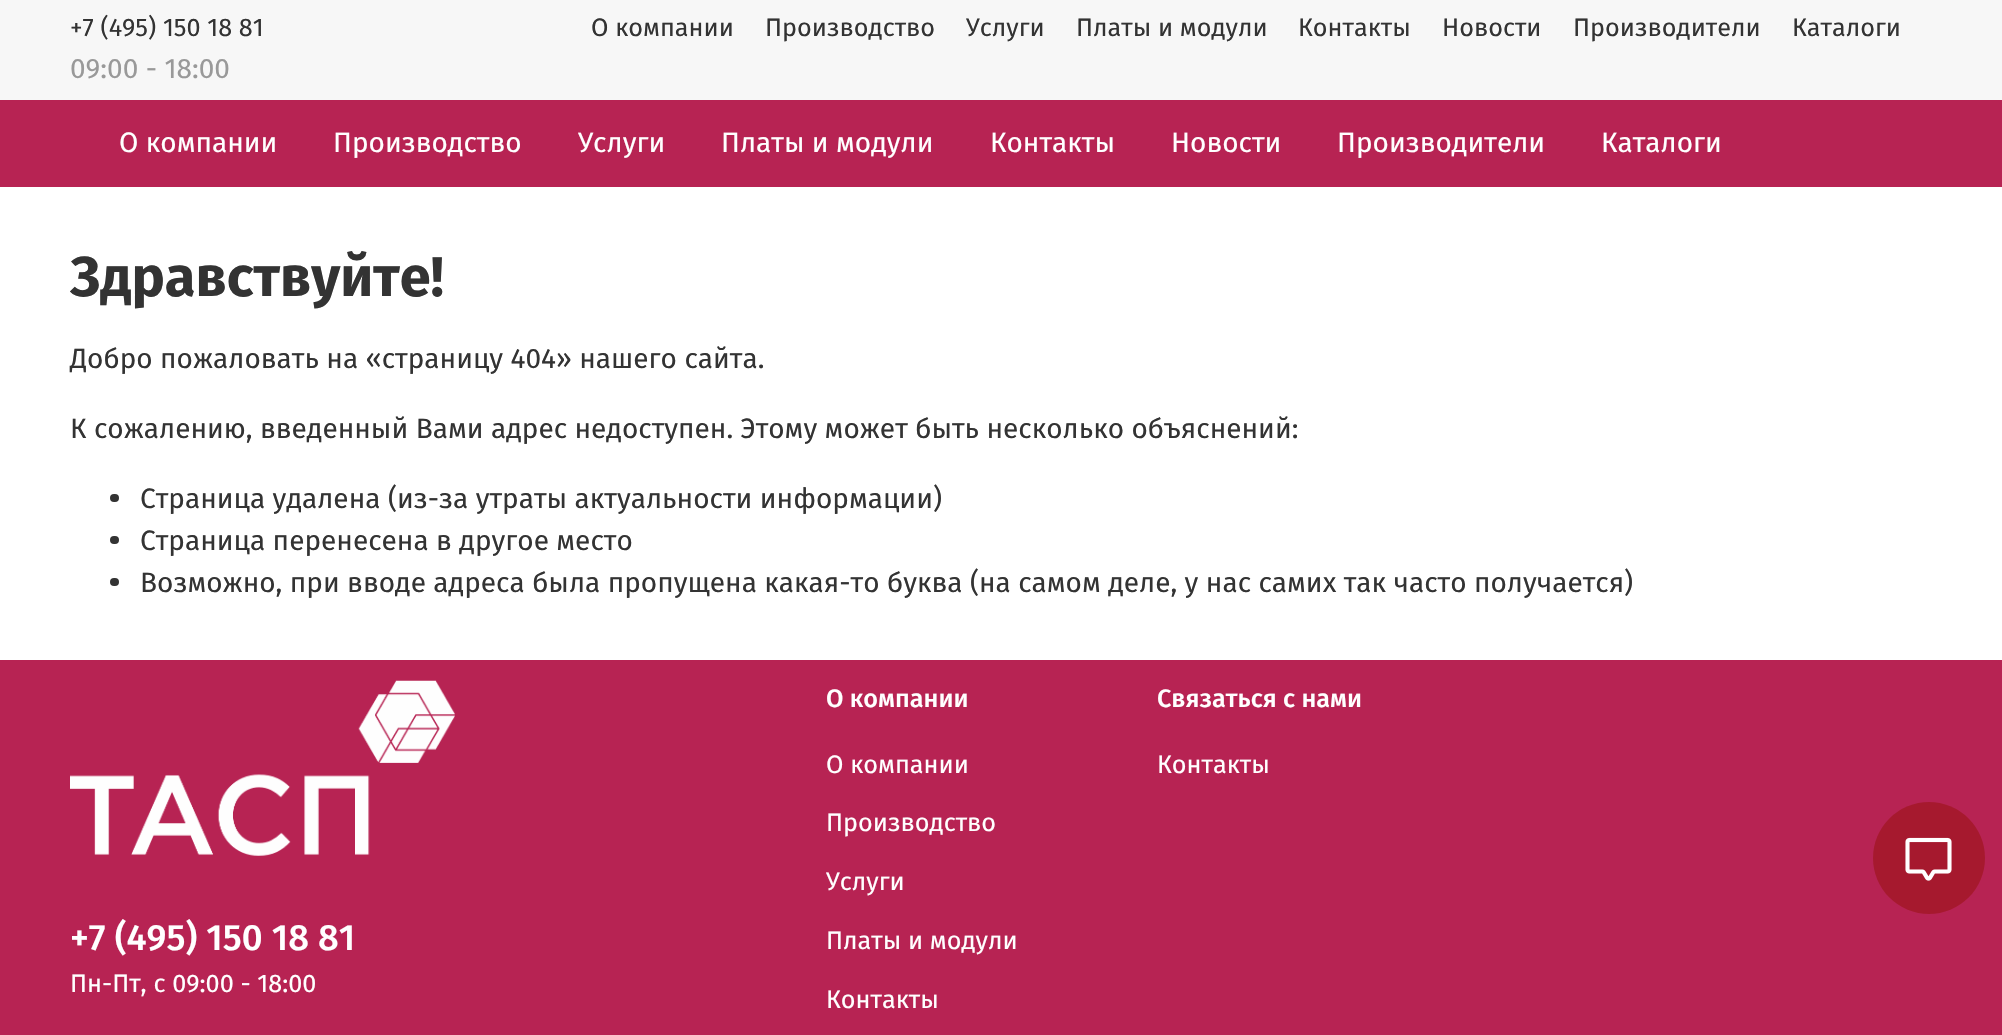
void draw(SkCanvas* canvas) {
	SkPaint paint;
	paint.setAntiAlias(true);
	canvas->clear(0xffffffff);
	paint.setColor(0xfff7f7f7);
	canvas->drawRect(SkRect::MakeXYWH(0, 0, 2002, 100), paint);
	SkFont f1(fontMgr->matchFamilyStyle("Fira Sans", SkFontStyle::Normal()), 25.25);
	f1.setSubpixel(true);
	paint.setColor(0xff333333);
	canvas->drawString("+7 (495) 150 18 81", 70, 36, f1, paint);
	canvas->drawString("О компании", 591, 36, f1, paint);
	canvas->drawString("Производство", 765, 36, f1, paint);
	canvas->drawString("Услуги", 966, 36, f1, paint);
	canvas->drawString("Платы и модули", 1076, 36, f1, paint);
	canvas->drawString("Контакты", 1298, 36, f1, paint);
	canvas->drawString("Новости", 1442, 36, f1, paint);
	canvas->drawString("Производители", 1573, 36, f1, paint);
	canvas->drawString("Каталоги", 1792, 36, f1, paint);
	SkFont f2(fontMgr->matchFamilyStyle("Fira Sans", SkFontStyle::Normal()), 28);
	f2.setSubpixel(true);
	paint.setColor(0xff999999);
	canvas->drawString("09:00 - 18:00", 70, 78, f2, paint);
	paint.setColor(0xffb72353);
	canvas->drawRect(SkRect::MakeXYWH(0, 100, 2002, 87), paint);
	paint.setColor(0xffffffff);
	canvas->drawString("О компании", 119, 152, f2, paint);
	canvas->drawString("Производство", 333, 152, f2, paint);
	canvas->drawString("Услуги", 578, 152, f2, paint);
	canvas->drawString("Платы и модули", 721, 152, f2, paint);
	canvas->drawString("Контакты", 990, 152, f2, paint);
	canvas->drawString("Новости", 1171, 152, f2, paint);
	canvas->drawString("Производители", 1337, 152, f2, paint);
	canvas->drawString("Каталоги", 1601, 152, f2, paint);
	SkFont f3(fontMgr->matchFamilyStyle("Fira Sans", SkFontStyle::Bold()), 56);
	f3.setSubpixel(true);
	paint.setColor(0xff333333);
	canvas->drawString("Здравствуйте!", 70, 296, f3, paint);
	canvas->drawString("Добро пожаловать на «страницу 404» нашего сайта.", 70, 368, f2, paint);
	canvas->drawString("К сожалению, введенный Вами адрес недоступен. Этому может быть несколько объяснений:", 70, 438, f2, paint);
	canvas->drawRoundRect(SkRect::MakeXYWH(110, 494, 9, 8), 4, 4, paint);
	canvas->drawString("Страница удалена (из-за утраты актуальности информации)", 140, 508, f2, paint);
	canvas->drawRoundRect(SkRect::MakeXYWH(110, 536, 9, 8), 4, 4, paint);
	canvas->drawString("Страница перенесена в другое место", 140, 550, f2, paint);
	canvas->drawRoundRect(SkRect::MakeXYWH(110, 578, 9, 8), 4, 4, paint);
	canvas->drawString("Возможно, при вводе адреса была пропущена какая-то буква (на самом деле, у нас самих так часто получается)", 140, 592, f2, paint);
	paint.setColor(0xffb72353);
	canvas->drawRect(SkRect::MakeXYWH(0, 660, 2002, 375), paint);
	canvas->drawImageRect(SkImages::DeferredFromEncodedData(SkData::MakeFromFileName("img1.png")), SkRect::MakeXYWH(70, 680, 385, 176), SkSamplingOptions());
	SkFont f4(fontMgr->matchFamilyStyle("Fira Sans", SkFontStyle(500, SkFontStyle::kNormal_Width, SkFontStyle::kUpright_Slant)), 36.5);
	f4.setSubpixel(true);
	paint.setColor(0xffffffff);
	canvas->drawString("+7 (495) 150 18 81", 70, 950, f4, paint);
	canvas->drawString("Пн-Пт, с 09:00 - 18:00", 70, 992, f1, paint);
	SkFont f5(fontMgr->matchFamilyStyle("Fira Sans", SkFontStyle(500, SkFontStyle::kNormal_Width, SkFontStyle::kUpright_Slant)), 25.25);
	f5.setSubpixel(true);
	canvas->drawString("О компании", 826, 707, f5, paint);
	canvas->drawString("О компании", 826, 773, f1, paint);
	canvas->drawString("Производство", 826, 831, f1, paint);
	canvas->drawString("Услуги", 826, 890, f1, paint);
	canvas->drawString("Платы и модули", 826, 949, f1, paint);
	canvas->drawString("Контакты", 826, 1008, f1, paint);
	canvas->drawString("Связаться с нами", 1157, 707, f5, paint);
	canvas->drawString("Контакты", 1157, 773, f1, paint);
	paint.setColor(0xffa6192e);
	canvas->drawCircle(1929, 858, 56, paint);
	canvas->drawImageRect(SkImages::DeferredFromEncodedData(SkData::MakeFromFileName("img2.png")), SkRect::MakeXYWH(1905, 837, 47, 44), SkSamplingOptions());
}
